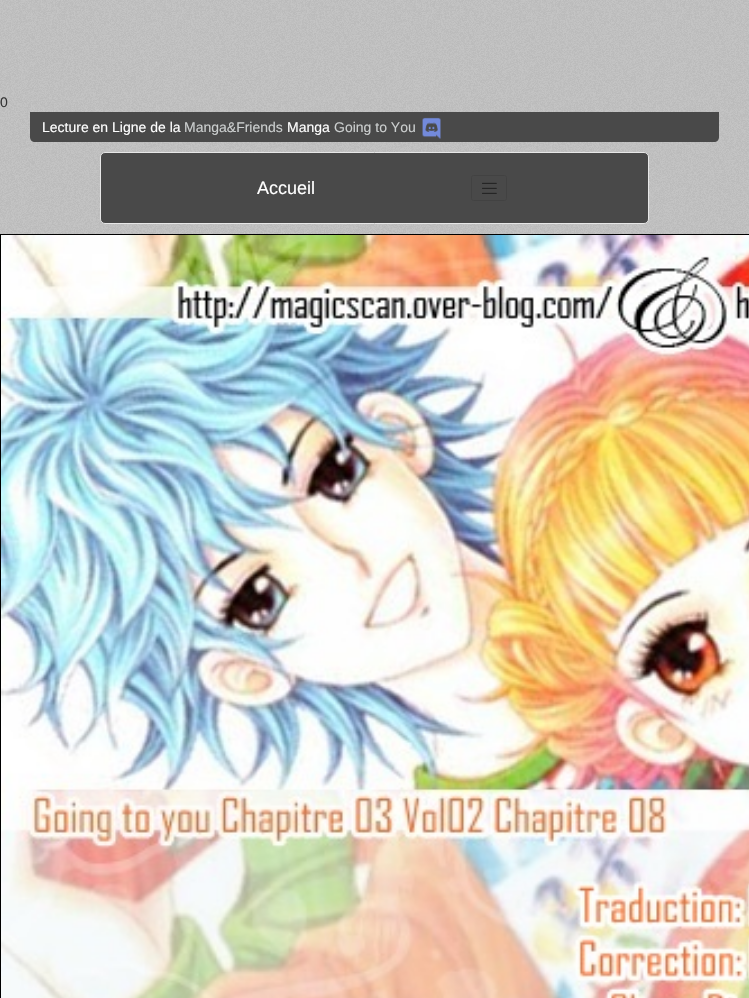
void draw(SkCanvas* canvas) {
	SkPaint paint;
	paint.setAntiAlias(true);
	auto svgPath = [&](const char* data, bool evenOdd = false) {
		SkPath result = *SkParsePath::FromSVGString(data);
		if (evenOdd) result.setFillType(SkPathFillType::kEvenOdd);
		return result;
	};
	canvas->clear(0xffffffff);
	canvas->drawImageRect(SkImages::DeferredFromEncodedData(SkData::MakeFromFileName("img1.png")), SkRect::MakeXYWH(0, 0, 749, 234), SkSamplingOptions());
	SkFont f1(fontMgr->matchFamilyStyle("Liberation Sans", SkFontStyle::Normal()), 14);
	f1.setSubpixel(true);
	paint.setColor(0xff333333);
	canvas->drawString("0", 0, 107, f1, paint);
	paint.setColor(0xff494949);
	canvas->drawPath(svgPath("M30 112H719V137C719 140 717 142 714 142H35C32 142 30 140 30 137Z"), paint);
	paint.setColor(0xffffffff);
	canvas->drawString("Lecture en Ligne de la", 42, 132, f1, paint);
	paint.setColor(0xffcbcece);
	canvas->drawString("Manga&Friends", 184, 132, f1, paint);
	paint.setColor(0xffffffff);
	canvas->drawString("Manga", 287, 132, f1, paint);
	paint.setColor(0xffcbcece);
	canvas->drawString("Going to You", 334, 132, f1, paint);
	canvas->drawImageRect(SkImages::DeferredFromEncodedData(SkData::MakeFromFileName("img2.png")), SkRect::MakeXYWH(422, 117, 19, 22), SkSamplingOptions());
	paint.setColor(0xff494949);
	canvas->drawRoundRect(SkRect::MakeXYWH(100.5, 152.5, 548, 71), 4.5, 4.5, paint);
	paint.setStroke(true);
	paint.setStrokeWidth(1);
	paint.setColor(0xffe7e7e7);
	canvas->drawRoundRect(SkRect::MakeXYWH(100.5, 152.5, 548, 71), 4.5, 4.5, paint);
	SkFont f2(fontMgr->matchFamilyStyle("Liberation Sans", SkFontStyle::Normal()), 18);
	f2.setSubpixel(true);
	paint.setStroke(false);
	paint.setColor(0xffffffff);
	canvas->drawString("Accueil", 257, 194, f2, paint);
	paint.setStroke(true);
	paint.setColor(0xff424242);
	canvas->drawRoundRect(SkRect::MakeXYWH(471.5, 175.5, 35, 25), 2, 2, paint);
	canvas->drawImageRect(SkImages::DeferredFromEncodedData(SkData::MakeFromFileName("img3.png")), SkRect::MakeXYWH(482, 182, 15, 12), SkSamplingOptions());
	paint.setColor(0xff000000);
	canvas->drawRect(SkRect::MakeXYWH(0.5, 234.5, 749, 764), paint);
	canvas->drawImageRect(SkImages::DeferredFromEncodedData(SkData::MakeFromFileName("img4.png")), SkRect::MakeXYWH(1, 235, 748, 763), SkSamplingOptions());
}
